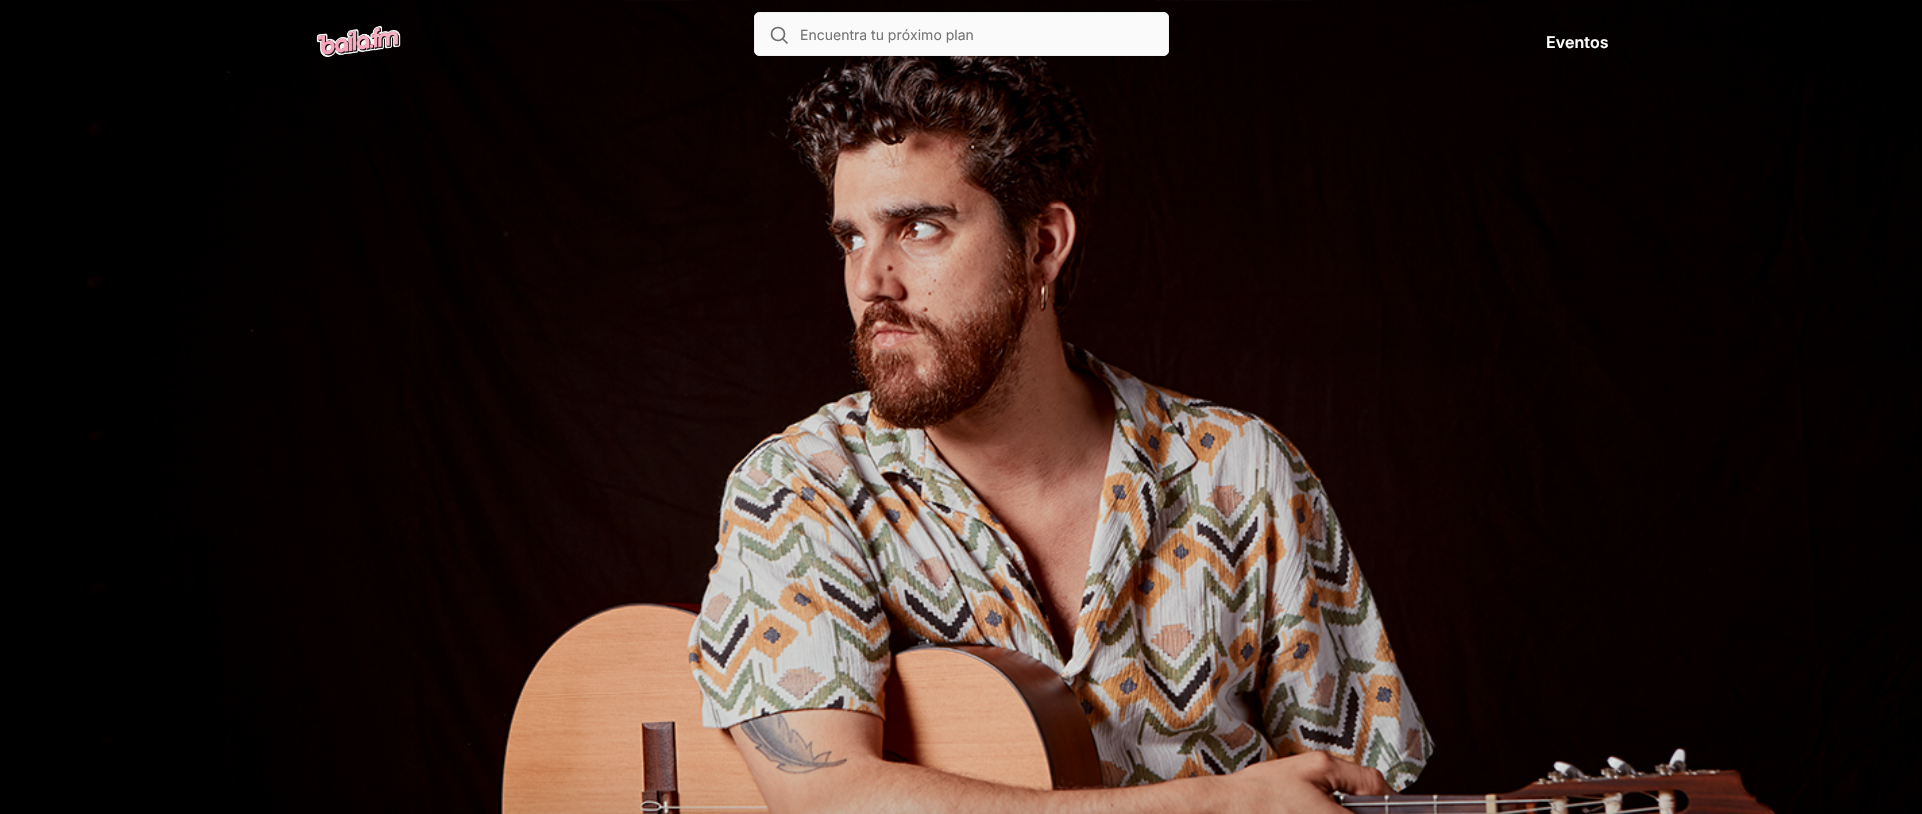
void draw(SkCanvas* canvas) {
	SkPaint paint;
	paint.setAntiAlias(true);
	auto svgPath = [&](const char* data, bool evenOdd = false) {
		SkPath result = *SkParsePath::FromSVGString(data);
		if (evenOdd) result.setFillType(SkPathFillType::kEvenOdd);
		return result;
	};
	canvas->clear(0xffffffff);
	canvas->drawImageRect(SkImages::DeferredFromEncodedData(SkData::MakeFromFileName("img1.png")), SkRect::MakeXYWH(0, 0, 1922, 814), SkSamplingOptions());
	paint.setColor(0xfffafafa);
	canvas->drawRoundRect(SkRect::MakeXYWH(754.5, 12.5, 414, 43), 4.5, 4.5, paint);
	paint.setStroke(true);
	paint.setStrokeWidth(1);
	paint.setColor(0xfff0f0f0);
	canvas->drawRoundRect(SkRect::MakeXYWH(754.5, 12.5, 414, 43), 4.5, 4.5, paint);
	paint.setStrokeWidth(1.7);
	paint.setColor(0xff6d6d6d);
	canvas->drawCircle(778, 34, 6.5, paint);
	canvas->drawPath(svgPath("M783 39L787.5 43.5"), paint);
	SkFont f1(fontMgr->matchFamilyStyle("Inter", SkFontStyle::Normal()), 14);
	f1.setSubpixel(true);
	paint.setStroke(false);
	paint.setColor(0xff757575);
	canvas->drawString("Encuentra tu próximo plan", 800, 40, f1, paint);
	canvas->drawImageRect(SkImages::DeferredFromEncodedData(SkData::MakeFromFileName("img2.png")), SkRect::MakeXYWH(316, 25, 85, 33), SkSamplingOptions());
	SkFont f2(fontMgr->matchFamilyStyle("Inter", SkFontStyle(600, SkFontStyle::kNormal_Width, SkFontStyle::kUpright_Slant)), 16);
	f2.setSubpixel(true);
	paint.setColor(0xffffffff);
	canvas->drawString("Eventos", 1546, 48, f2, paint);
}
